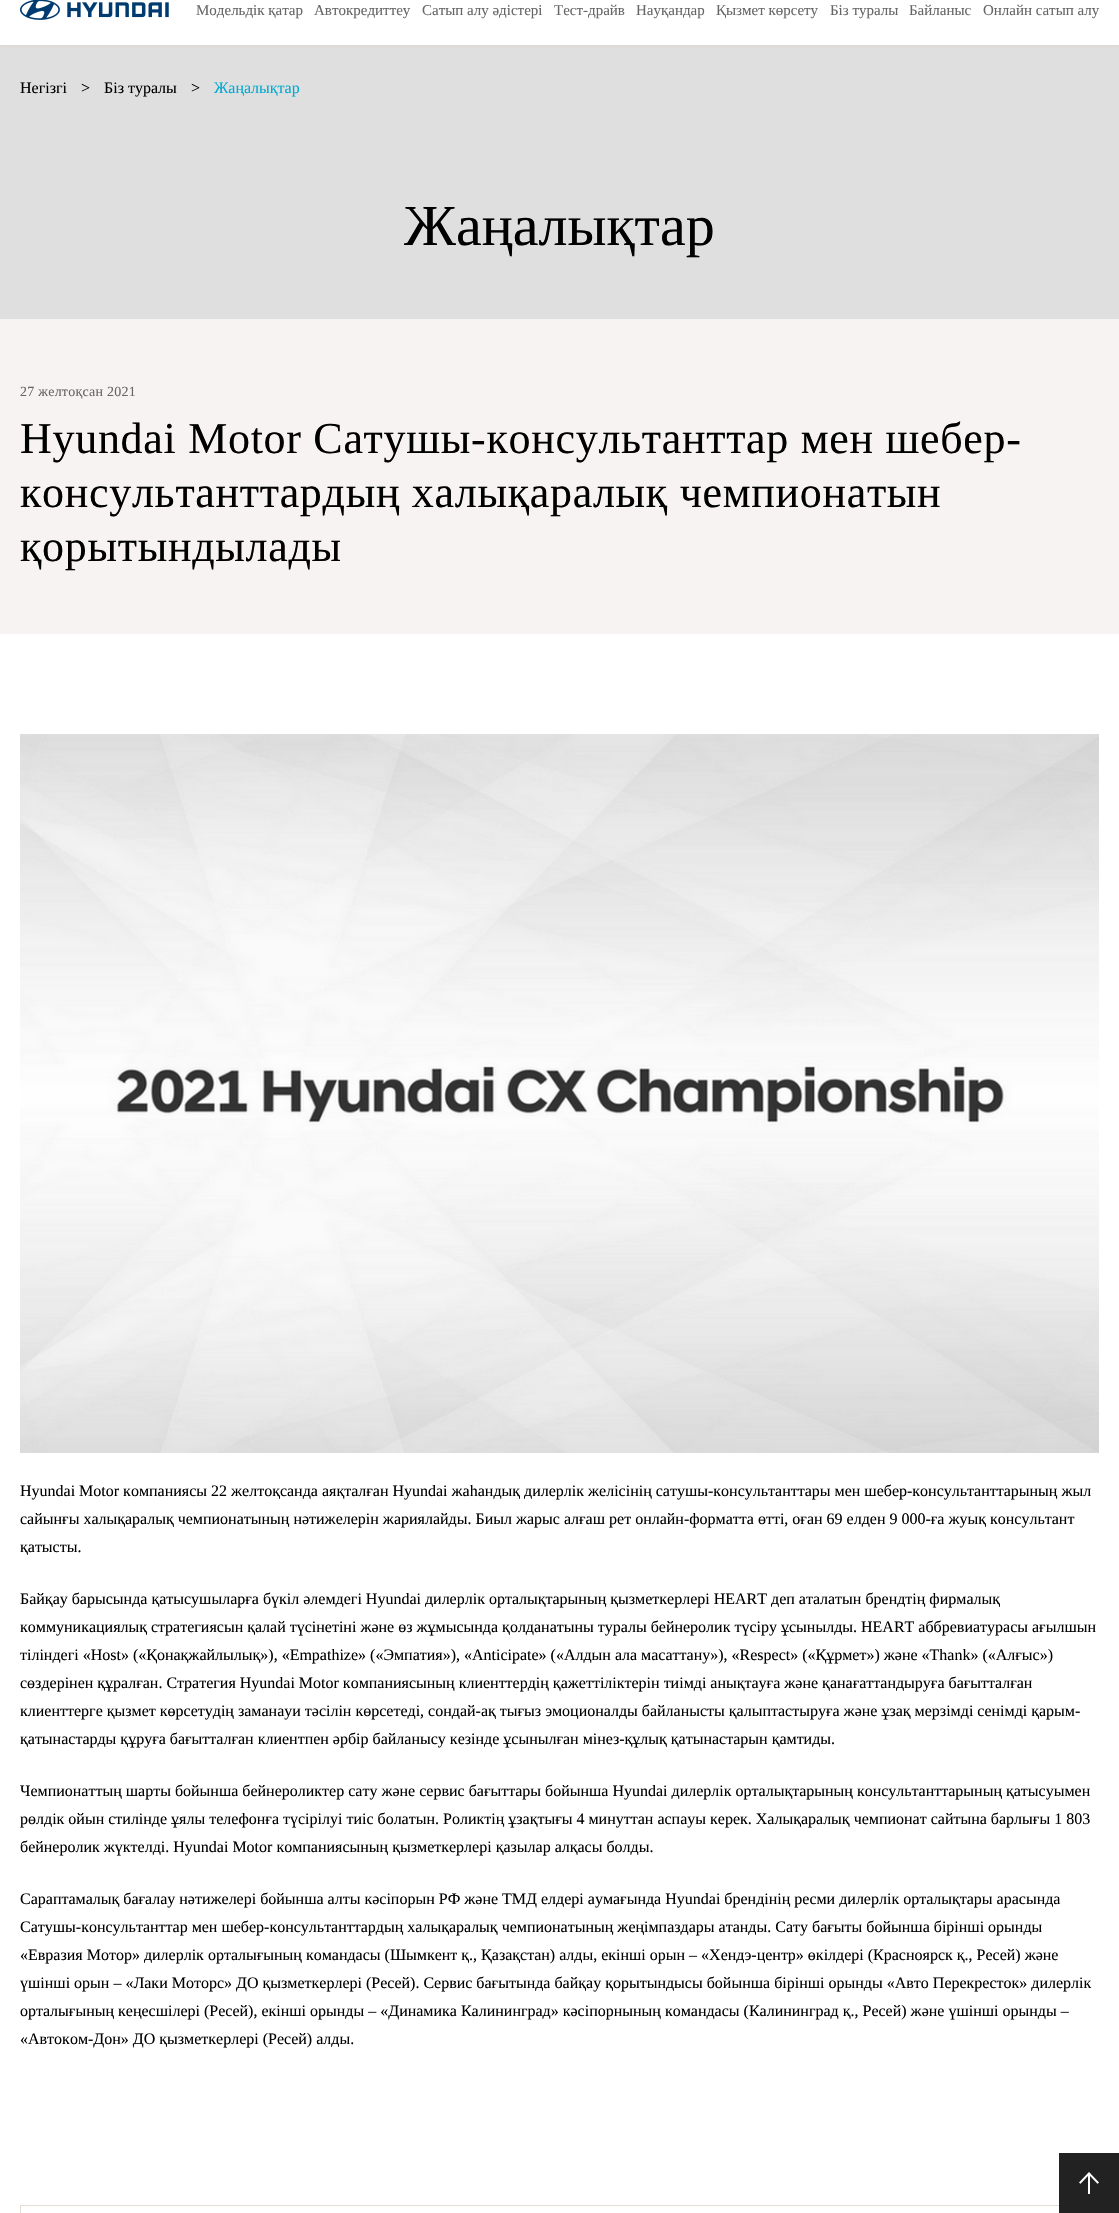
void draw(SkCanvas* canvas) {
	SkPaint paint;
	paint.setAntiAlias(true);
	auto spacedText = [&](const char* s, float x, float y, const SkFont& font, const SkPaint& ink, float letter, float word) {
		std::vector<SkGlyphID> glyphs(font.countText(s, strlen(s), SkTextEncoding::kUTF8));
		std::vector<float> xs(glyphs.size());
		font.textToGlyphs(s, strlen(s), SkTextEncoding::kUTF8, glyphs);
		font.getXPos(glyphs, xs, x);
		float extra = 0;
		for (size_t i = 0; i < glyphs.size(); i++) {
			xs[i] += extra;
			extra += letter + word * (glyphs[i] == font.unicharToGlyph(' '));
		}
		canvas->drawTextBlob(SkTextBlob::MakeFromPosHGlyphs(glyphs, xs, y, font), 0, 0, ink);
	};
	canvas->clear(0xffffffff);
	paint.setColor(0xffdfdfdf);
	canvas->drawRect(SkRect::MakeXYWH(0, 45, 1119, 274), paint);
	canvas->save();
	canvas->clipRect(SkRect::MakeXYWH(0, 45, 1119, 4));
	paint.setColor(0xb3d8d1c8);
	paint.setMaskFilter(SkMaskFilter::MakeBlur(kNormal_SkBlurStyle, 1.5));
	canvas->drawRect(SkRect::MakeXYWH(0, -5, 1119, 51), paint);
	paint.setMaskFilter(nullptr);
	canvas->restore();
	canvas->drawImageRect(SkImages::DeferredFromEncodedData(SkData::MakeFromFileName("img1.png")), SkRect::MakeXYWH(20, 0, 149, 20), SkSamplingOptions());
	SkFont f1(fontMgr->matchFamilyStyle("Liberation Serif", SkFontStyle::Normal()), 15);
	f1.setSubpixel(true);
	paint.setColor(0xff666666);
	canvas->drawString("Модельдік қатар", 196, 15, f1, paint);
	canvas->drawString("Автокредиттеу", 314, 15, f1, paint);
	canvas->drawString("Сатып алу әдістері", 422, 15, f1, paint);
	canvas->drawString("Тест-драйв", 554, 15, f1, paint);
	canvas->drawString("Науқандар", 636, 15, f1, paint);
	canvas->drawString("Қызмет көрсету", 716, 15, f1, paint);
	canvas->drawString("Біз туралы", 830, 15, f1, paint);
	canvas->drawString("Байланыс", 909, 15, f1, paint);
	canvas->drawString("Онлайн сатып алу", 983, 15, f1, paint);
	SkFont f2(fontMgr->matchFamilyStyle("Liberation Serif", SkFontStyle::Normal()), 16);
	f2.setSubpixel(true);
	paint.setColor(0xff000000);
	canvas->drawString("Негізгі", 20, 93, f2, paint);
	canvas->drawString(">", 81, 93, f2, paint);
	canvas->drawString("Біз туралы", 104, 93, f2, paint);
	canvas->drawString(">", 191, 93, f2, paint);
	paint.setColor(0xff00aad2);
	canvas->drawString("Жаңалықтар", 214, 93, f2, paint);
	SkFont f3(fontMgr->matchFamilyStyle("Liberation Serif", SkFontStyle::Normal()), 58);
	f3.setSubpixel(true);
	paint.setColor(0xff000000);
	canvas->drawString("Жаңалықтар", 404, 245, f3, paint);
	paint.setColor(0xfff6f3f2);
	canvas->drawRect(SkRect::MakeXYWH(0, 319, 1119, 315), paint);
	SkFont f4(fontMgr->matchFamilyStyle("Liberation Serif", SkFontStyle::Normal()), 14);
	f4.setSubpixel(true);
	paint.setColor(0xff666666);
	spacedText("27 желтоқсан 2021", 20, 396, f4, paint, 0.25, 0);
	SkFont f5(fontMgr->matchFamilyStyle("Liberation Serif", SkFontStyle::Normal()), 44);
	f5.setSubpixel(true);
	paint.setColor(0xff000000);
	spacedText("Hyundai Motor Сатушы-консультанттар мен шебер-", 20, 453, f5, paint, 0.7, 0);
	spacedText("консультанттардың халықаралық чемпионатын", 20, 507, f5, paint, 0.7, 0);
	spacedText("қорытындылады", 20, 561, f5, paint, 0.7, 0);
	canvas->drawImageRect(SkImages::DeferredFromEncodedData(SkData::MakeFromFileName("img2.png")), SkRect::MakeXYWH(20, 734, 1079, 719), SkSamplingOptions());
	canvas->drawString("Hyundai Motor компаниясы 22 желтоқсанда аяқталған Hyundai жаһандық дилерлік желісінің сатушы-консультанттары мен шебер-консультанттарының жыл", 20, 1496, f2, paint);
	canvas->drawString("сайынғы халықаралық чемпионатының нәтижелерін жариялайды. Биыл жарыс алғаш рет онлайн-форматта өтті, оған 69 елден 9 000-ға жуық консультант", 20, 1524, f2, paint);
	canvas->drawString("қатысты.", 20, 1552, f2, paint);
	canvas->drawString("Байқау барысында қатысушыларға бүкіл әлемдегі Hyundai дилерлік орталықтарының қызметкерлері HEART деп аталатын брендтің фирмалық", 20, 1604, f2, paint);
	canvas->drawString("коммуникациялық стратегиясын қалай түсінетіні және өз жұмысында қолданатыны туралы бейнеролик түсіру ұсынылды. HEART аббревиатурасы ағылшын", 20, 1632, f2, paint);
	canvas->drawString("тіліндегі «Host» («Қонақжайлылық»), «Empathize» («Эмпатия»), «Anticipate» («Алдын ала масаттану»), «Respect» («Құрмет») және «Thank» («Алғыс»)", 20, 1660, f2, paint);
	canvas->drawString("сөздерінен құралған. Стратегия Hyundai Motor компаниясының клиенттердің қажеттіліктерін тиімді анықтауға және қанағаттандыруға бағытталған", 20, 1688, f2, paint);
	canvas->drawString("клиенттерге қызмет көрсетудің заманауи тәсілін көрсетеді, сондай-ақ тығыз эмоционалды байланысты қалыптастыруға және ұзақ мерзімді сенімді қарым-", 20, 1716, f2, paint);
	canvas->drawString("қатынастарды құруға бағытталған клиентпен әрбір байланысу кезінде ұсынылған мінез-құлық қатынастарын қамтиды.", 20, 1744, f2, paint);
	canvas->drawString("Чемпионаттың шарты бойынша бейнероликтер сату және сервис бағыттары бойынша Hyundai дилерлік орталықтарының консультанттарының қатысуымен", 20, 1796, f2, paint);
	canvas->drawString("рөлдік ойын стилінде ұялы телефонға түсірілуі тиіс болатын. Роликтің ұзақтығы 4 минуттан аспауы керек. Халықаралық чемпионат сайтына барлығы 1 803", 20, 1824, f2, paint);
	canvas->drawString("бейнеролик жүктелді. Hyundai Motor компаниясының қызметкерлері қазылар алқасы болды.", 20, 1852, f2, paint);
	canvas->drawString("Сараптамалық бағалау нәтижелері бойынша алты кәсіпорын РФ және ТМД елдері аумағында Hyundai брендінің ресми дилерлік орталықтары арасында", 20, 1904, f2, paint);
	canvas->drawString("Сатушы-консультанттар мен шебер-консультанттардың халықаралық чемпионатының жеңімпаздары атанды. Сату бағыты бойынша бірінші орынды", 20, 1932, f2, paint);
	canvas->drawString("«Евразия Мотор» дилерлік орталығының командасы (Шымкент қ., Қазақстан) алды, екінші орын – «Хендэ-центр» өкілдері (Красноярск қ., Ресей) және", 20, 1960, f2, paint);
	canvas->drawString("үшінші орын – «Лаки Моторс» ДО қызметкерлері (Ресей). Сервис бағытында байқау қорытындысы бойынша бірінші орынды «Авто Перекресток» дилерлік", 20, 1988, f2, paint);
	canvas->drawString("орталығының кеңесшілері (Ресей), екінші орынды – «Динамика Калининград» кәсіпорнының командасы (Калининград қ., Ресей) және үшінші орынды –", 20, 2016, f2, paint);
	canvas->drawString("«Автоком-Дон» ДО қызметкерлері (Ресей) алды.", 20, 2044, f2, paint);
	paint.setStroke(true);
	paint.setStrokeWidth(1);
	paint.setColor(0xffe2dcd4);
	canvas->drawRect(SkRect::MakeXYWH(20.5, 2205.5, 1078, 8), paint);
	canvas->drawImageRect(SkImages::DeferredFromEncodedData(SkData::MakeFromFileName("img3.png")), SkRect::MakeXYWH(1059, 2153, 60, 60), SkSamplingOptions());
}
